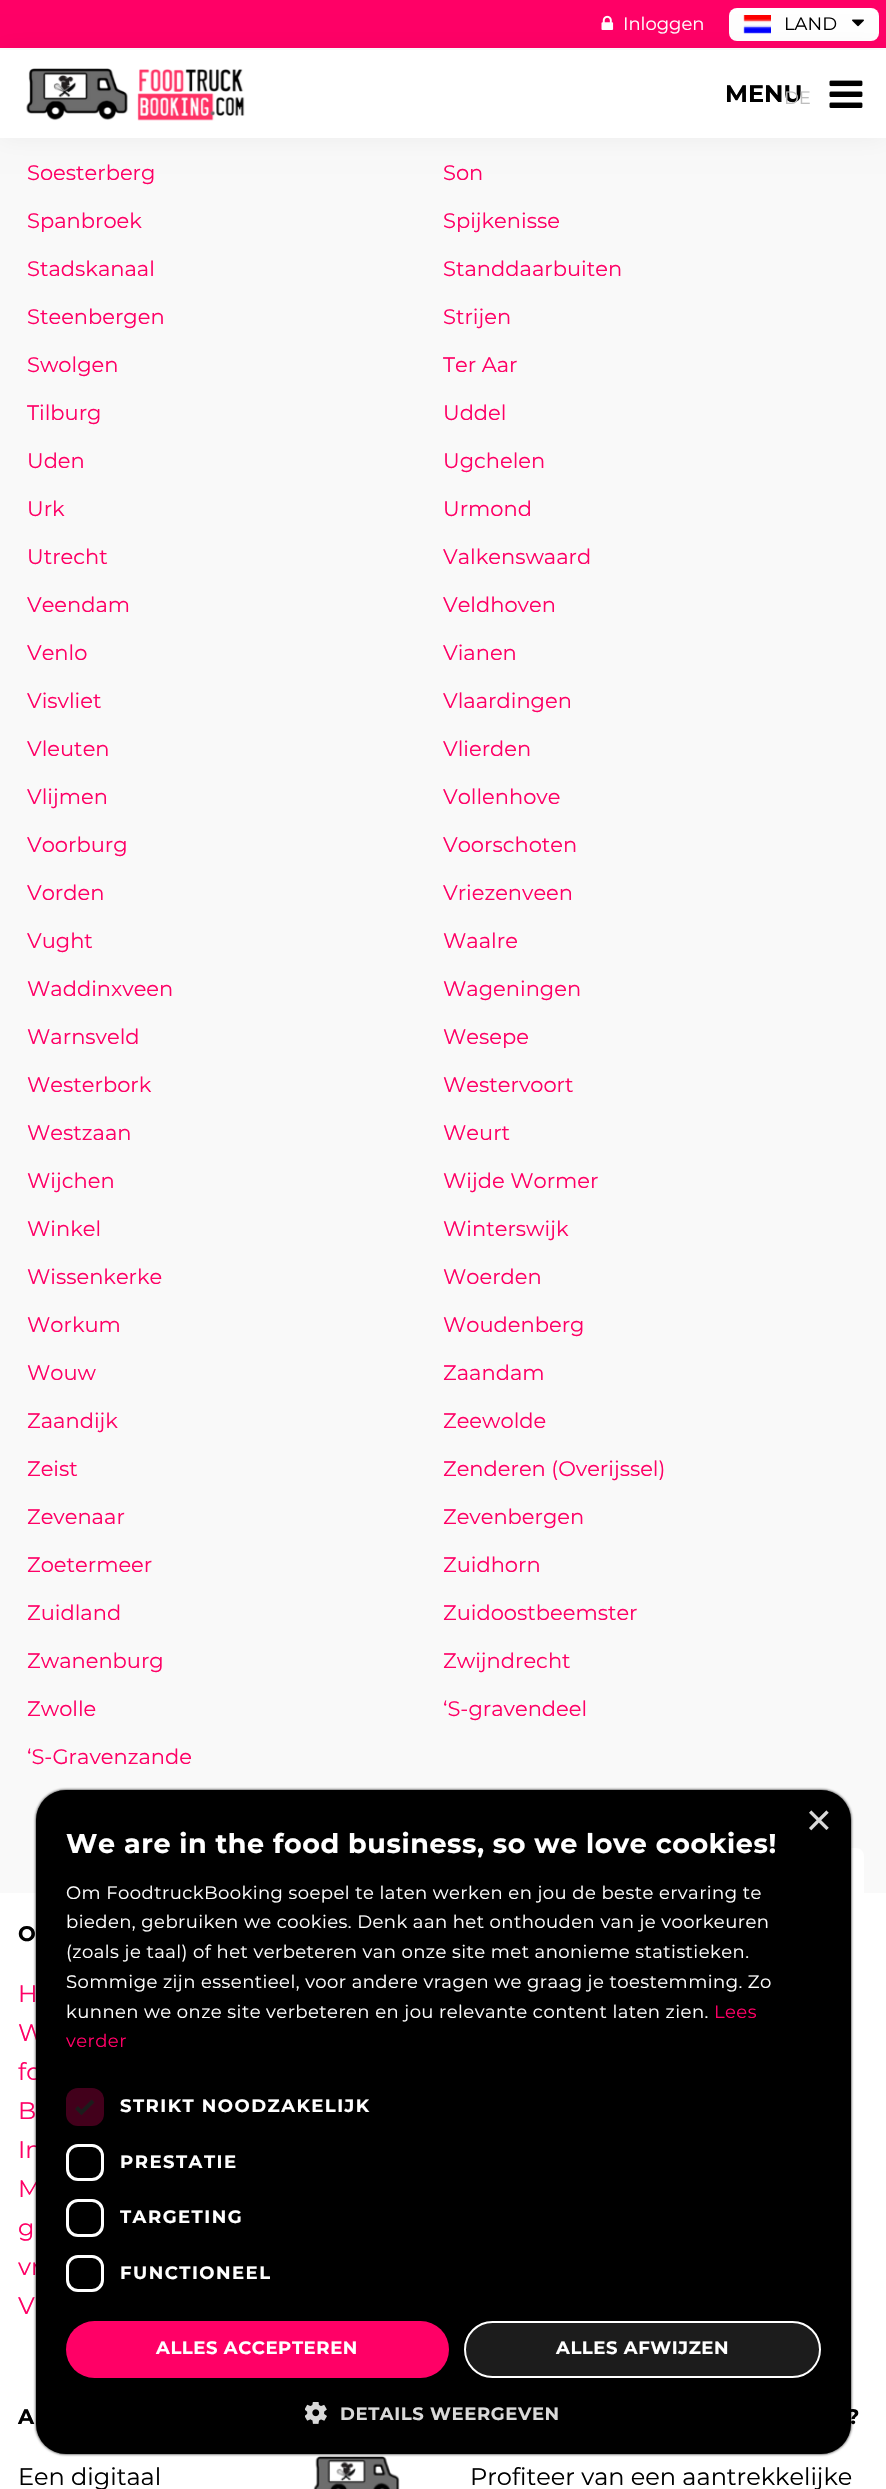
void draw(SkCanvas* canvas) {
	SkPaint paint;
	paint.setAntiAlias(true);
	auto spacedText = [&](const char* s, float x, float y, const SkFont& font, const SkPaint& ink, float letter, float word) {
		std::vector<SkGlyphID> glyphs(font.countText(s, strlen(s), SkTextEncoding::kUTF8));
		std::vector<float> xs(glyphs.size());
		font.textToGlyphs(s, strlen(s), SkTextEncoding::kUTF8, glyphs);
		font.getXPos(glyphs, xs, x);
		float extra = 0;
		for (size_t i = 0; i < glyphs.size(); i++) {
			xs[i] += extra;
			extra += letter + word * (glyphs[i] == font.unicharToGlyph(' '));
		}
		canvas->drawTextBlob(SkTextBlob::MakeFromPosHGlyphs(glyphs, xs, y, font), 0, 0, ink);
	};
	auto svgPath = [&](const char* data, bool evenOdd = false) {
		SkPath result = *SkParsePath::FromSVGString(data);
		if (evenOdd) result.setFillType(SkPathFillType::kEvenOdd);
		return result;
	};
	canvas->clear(0xfff9f9f9);
	paint.setColor(0xffff0066);
	canvas->drawRect(SkRect::MakeXYWH(0, 0, 886, 48), paint);
	paint.setColor(0xffffffff);
	canvas->drawRect(SkRect::MakeXYWH(0, 48, 886, 2), paint);
	canvas->drawImageRect(SkImages::DeferredFromEncodedData(SkData::MakeFromFileName("img1.png")), SkRect::MakeXYWH(601, 15, 13, 15), SkSamplingOptions());
	SkFont f1(fontMgr->matchFamilyStyle("Montserrat", SkFontStyle::Normal()), 18);
	f1.setSubpixel(true);
	canvas->drawString("Inloggen", 623, 30, f1, paint);
	canvas->drawRoundRect(SkRect::MakeXYWH(729, 8, 150, 33), 8, 8, paint);
	canvas->drawImageRect(SkImages::DeferredFromEncodedData(SkData::MakeFromFileName("img2.png")), SkRect::MakeXYWH(743, 15, 28, 19), SkSamplingOptions());
	paint.setColor(0xff000000);
	canvas->drawString("LAND", 784, 30, f1, paint);
	canvas->drawImageRect(SkImages::DeferredFromEncodedData(SkData::MakeFromFileName("img3.png")), SkRect::MakeXYWH(852, 19, 12, 8), SkSamplingOptions());
	paint.setColor(0x0d000000);
	paint.setMaskFilter(SkMaskFilter::MakeBlur(kNormal_SkBlurStyle, 12));
	canvas->drawRect(SkRect::MakeXYWH(0, 50, 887, 88), paint);
	paint.setMaskFilter(nullptr);
	paint.setColor(0xffffffff);
	canvas->drawRect(SkRect::MakeXYWH(0, 50, 886, 88), paint);
	SkFont f2(fontMgr->matchFamilyStyle("Montserrat", SkFontStyle::Bold()), 24);
	f2.setSubpixel(true);
	paint.setColor(0xff000000);
	canvas->drawString("MENU", 725, 102, f2, paint);
	paint.setColor(0xffbebebe);
	canvas->drawString("DE", 784, 104, f1, paint);
	canvas->drawImageRect(SkImages::DeferredFromEncodedData(SkData::MakeFromFileName("img4.png")), SkRect::MakeXYWH(26, 68, 219, 53), SkSamplingOptions());
	canvas->drawImageRect(SkImages::DeferredFromEncodedData(SkData::MakeFromFileName("img5.png")), SkRect::MakeXYWH(829, 80, 34, 28), SkSamplingOptions());
	SkFont f3(fontMgr->matchFamilyStyle("Montserrat", SkFontStyle::Normal()), 21);
	f3.setSubpixel(true);
	paint.setColor(0xffff0066);
	canvas->drawString("Soesterberg", 27, 180, f3, paint);
	canvas->drawString("Son", 443, 180, f3, paint);
	canvas->drawString("Spanbroek", 27, 228, f3, paint);
	canvas->drawString("Spijkenisse", 443, 228, f3, paint);
	canvas->drawString("Stadskanaal", 27, 276, f3, paint);
	canvas->drawString("Standdaarbuiten", 443, 276, f3, paint);
	canvas->drawString("Steenbergen", 27, 324, f3, paint);
	canvas->drawString("Strijen", 443, 324, f3, paint);
	canvas->drawString("Swolgen", 27, 372, f3, paint);
	canvas->drawString("Ter Aar", 443, 372, f3, paint);
	canvas->drawString("Tilburg", 27, 420, f3, paint);
	canvas->drawString("Uddel", 443, 420, f3, paint);
	canvas->drawString("Uden", 27, 468, f3, paint);
	canvas->drawString("Ugchelen", 443, 468, f3, paint);
	canvas->drawString("Urk", 27, 516, f3, paint);
	canvas->drawString("Urmond", 443, 516, f3, paint);
	canvas->drawString("Utrecht", 27, 564, f3, paint);
	canvas->drawString("Valkenswaard", 443, 564, f3, paint);
	canvas->drawString("Veendam", 27, 612, f3, paint);
	canvas->drawString("Veldhoven", 443, 612, f3, paint);
	canvas->drawString("Venlo", 27, 660, f3, paint);
	canvas->drawString("Vianen", 443, 660, f3, paint);
	canvas->drawString("Visvliet", 27, 708, f3, paint);
	canvas->drawString("Vlaardingen", 443, 708, f3, paint);
	canvas->drawString("Vleuten", 27, 756, f3, paint);
	canvas->drawString("Vlierden", 443, 756, f3, paint);
	canvas->drawString("Vlijmen", 27, 804, f3, paint);
	canvas->drawString("Vollenhove", 443, 804, f3, paint);
	canvas->drawString("Voorburg", 27, 852, f3, paint);
	canvas->drawString("Voorschoten", 443, 852, f3, paint);
	canvas->drawString("Vorden", 27, 900, f3, paint);
	canvas->drawString("Vriezenveen", 443, 900, f3, paint);
	canvas->drawString("Vught", 27, 948, f3, paint);
	canvas->drawString("Waalre", 443, 948, f3, paint);
	canvas->drawString("Waddinxveen", 27, 996, f3, paint);
	canvas->drawString("Wageningen", 443, 996, f3, paint);
	canvas->drawString("Warnsveld", 27, 1044, f3, paint);
	canvas->drawString("Wesepe", 443, 1044, f3, paint);
	canvas->drawString("Westerbork", 27, 1092, f3, paint);
	canvas->drawString("Westervoort", 443, 1092, f3, paint);
	canvas->drawString("Westzaan", 27, 1140, f3, paint);
	canvas->drawString("Weurt", 443, 1140, f3, paint);
	canvas->drawString("Wijchen", 27, 1188, f3, paint);
	canvas->drawString("Wijde Wormer", 443, 1188, f3, paint);
	canvas->drawString("Winkel", 27, 1236, f3, paint);
	canvas->drawString("Winterswijk", 443, 1236, f3, paint);
	canvas->drawString("Wissenkerke", 27, 1284, f3, paint);
	canvas->drawString("Woerden", 443, 1284, f3, paint);
	canvas->drawString("Workum", 27, 1332, f3, paint);
	canvas->drawString("Woudenberg", 443, 1332, f3, paint);
	canvas->drawString("Wouw", 27, 1380, f3, paint);
	canvas->drawString("Zaandam", 443, 1380, f3, paint);
	canvas->drawString("Zaandijk", 27, 1428, f3, paint);
	canvas->drawString("Zeewolde", 443, 1428, f3, paint);
	canvas->drawString("Zeist", 27, 1476, f3, paint);
	canvas->drawString("Zenderen (Overijssel)", 443, 1476, f3, paint);
	canvas->drawString("Zevenaar", 27, 1524, f3, paint);
	canvas->drawString("Zevenbergen", 443, 1524, f3, paint);
	canvas->drawString("Zoetermeer", 27, 1572, f3, paint);
	canvas->drawString("Zuidhorn", 443, 1572, f3, paint);
	canvas->drawString("Zuidland", 27, 1620, f3, paint);
	canvas->drawString("Zuidoostbeemster", 443, 1620, f3, paint);
	canvas->drawString("Zwanenburg", 27, 1668, f3, paint);
	canvas->drawString("Zwijndrecht", 443, 1668, f3, paint);
	canvas->drawString("Zwolle", 27, 1716, f3, paint);
	canvas->drawString("‘S-gravendeel", 443, 1716, f3, paint);
	canvas->drawString("‘S-Gravenzande", 27, 1764, f3, paint);
	paint.setColor(0xffffffff);
	canvas->drawRect(SkRect::MakeXYWH(0, 1893, 886, 596), paint);
	canvas->drawPath(svgPath("M650 1848H856C860.5 1848 864 1851.5 864 1856V1893H642V1856C642 1851.5 645.5 1848 650 1848Z"), paint);
	SkFont f4(fontMgr->matchFamilyStyle("Montserrat", SkFontStyle::Bold()), 21);
	f4.setSubpixel(true);
	paint.setColor(0xff000000);
	canvas->drawString("O", 18, 1941, f4, paint);
	SkFont f5(fontMgr->matchFamilyStyle("Montserrat", SkFontStyle::Normal()), 24);
	f5.setSubpixel(true);
	paint.setColor(0xffff0066);
	canvas->drawString("H", 18, 2002, f5, paint);
	canvas->drawString("W", 18, 2041, f5, paint);
	canvas->drawString("fo", 18, 2080, f5, paint);
	canvas->drawString("B", 18, 2119, f5, paint);
	canvas->drawString("In", 18, 2158, f5, paint);
	canvas->drawString("M", 18, 2197, f5, paint);
	canvas->drawString("g", 18, 2236, f5, paint);
	canvas->drawString("vr", 18, 2275, f5, paint);
	canvas->drawString("V", 18, 2314, f5, paint);
	paint.setColor(0xff000000);
	canvas->drawString("A", 18, 2424, f4, paint);
	canvas->drawString("Een digitaal", 18, 2485, f5, paint);
	canvas->drawImageRect(SkImages::DeferredFromEncodedData(SkData::MakeFromFileName("img6.png")), SkRect::MakeXYWH(313, 2455, 87, 34), SkSamplingOptions());
	canvas->drawString("?", 847, 2424, f4, paint);
	canvas->drawString("Profiteer van een aantrekkelijke", 470, 2485, f5, paint);
	paint.setMaskFilter(SkMaskFilter::MakeBlur(kNormal_SkBlurStyle, 1.5));
	canvas->drawRoundRect(SkRect::MakeXYWH(36, 1790, 815, 664), 30, 30, paint);
	paint.setMaskFilter(nullptr);
	canvas->drawRoundRect(SkRect::MakeXYWH(36, 1790, 815, 664), 30, 30, paint);
	SkFont f6(fontMgr->matchFamilyStyle("Liberation Sans", SkFontStyle::Normal()), 44);
	f6.setSubpixel(true);
	paint.setColor(0xffd9d9d9);
	canvas->drawString("×", 806, 1835, f6, paint);
	SkFont f7(fontMgr->matchFamilyStyle("Montserrat", SkFontStyle::Bold()), 27);
	f7.setSubpixel(true);
	paint.setColor(0xffffffff);
	spacedText("We are in the food business, so we love cookies!", 66, 1853, f7, paint, 0.6, 0);
	spacedText("Om FoodtruckBooking soepel te laten werken en jou de beste ervaring te", 66, 1899, f1, paint, 0.45, 0);
	spacedText("bieden, gebruiken we cookies. Denk aan het onthouden van je voorkeuren", 66, 1928, f1, paint, 0.45, 0);
	spacedText("(zoals je taal) of het verbeteren van onze site met anonieme statistieken.", 66, 1958, f1, paint, 0.45, 0);
	spacedText("Sommige zijn essentieel, voor andere vragen we graag je toestemming. Zo", 66, 1988, f1, paint, 0.45, 0);
	spacedText("kunnen we onze site verbeteren en jou relevante content laten zien.", 66, 2018, f1, paint, 0.45, 0);
	paint.setColor(0xffff0066);
	spacedText("Lees", 714, 2018, f1, paint, 0.45, 0);
	spacedText("verder", 66, 2047, f1, paint, 0.45, 0);
	paint.setColor(0xff42001b);
	canvas->drawRoundRect(SkRect::MakeXYWH(66, 2088, 38, 38), 12, 12, paint);
	paint.setStroke(true);
	paint.setStrokeWidth(3.9);
	paint.setColor(0xff1c1c1c);
	canvas->drawPath(svgPath("M76.5 2107.5L81.5 2112.5L93 2101"), paint);
	SkFont f8(fontMgr->matchFamilyStyle("Montserrat", SkFontStyle::Bold()), 18);
	f8.setSubpixel(true);
	paint.setStroke(false);
	paint.setColor(0xffffffff);
	spacedText("STRIKT NOODZAKELIJK", 120, 2112, f8, paint, 1.5, 0);
	paint.setStroke(true);
	paint.setStrokeWidth(3);
	canvas->drawRoundRect(SkRect::MakeXYWH(67.5, 2145.5, 35, 34), 10.5, 10.5, paint);
	paint.setStroke(false);
	spacedText("PRESTATIE", 120, 2168, f8, paint, 1.5, 0);
	paint.setStroke(true);
	canvas->drawRoundRect(SkRect::MakeXYWH(67.5, 2200.5, 35, 35), 10.5, 10.5, paint);
	paint.setStroke(false);
	spacedText("TARGETING", 120, 2223, f8, paint, 1.5, 0);
	paint.setStroke(true);
	canvas->drawRoundRect(SkRect::MakeXYWH(67.5, 2256.5, 35, 34), 10.5, 10.5, paint);
	paint.setStroke(false);
	spacedText("FUNCTIONEEL", 120, 2279, f8, paint, 1.5, 0);
	paint.setColor(0xffff0066);
	canvas->drawRoundRect(SkRect::MakeXYWH(66, 2321, 383, 57), 28.5, 28.5, paint);
	paint.setColor(0xffffffff);
	spacedText("ALLES ACCEPTEREN", 156, 2354, f8, paint, 0.6, 0);
	paint.setColor(0xff1c1c1c);
	canvas->drawRoundRect(SkRect::MakeXYWH(465, 2322, 355, 55), 27.5, 27.5, paint);
	paint.setStroke(true);
	paint.setStrokeWidth(2);
	paint.setColor(0xffffffff);
	canvas->drawRoundRect(SkRect::MakeXYWH(465, 2322, 355, 55), 27.5, 27.5, paint);
	paint.setStroke(false);
	spacedText("ALLES AFWIJZEN", 556, 2354, f8, paint, 0.6, 0);
	canvas->drawImageRect(SkImages::DeferredFromEncodedData(SkData::MakeFromFileName("img7.png")), SkRect::MakeXYWH(305, 2402, 22, 22), SkSamplingOptions());
	paint.setColor(0xffd9d9d9);
	spacedText("DETAILS WEERGEVEN", 340, 2420, f8, paint, 0.6, 0);
}
